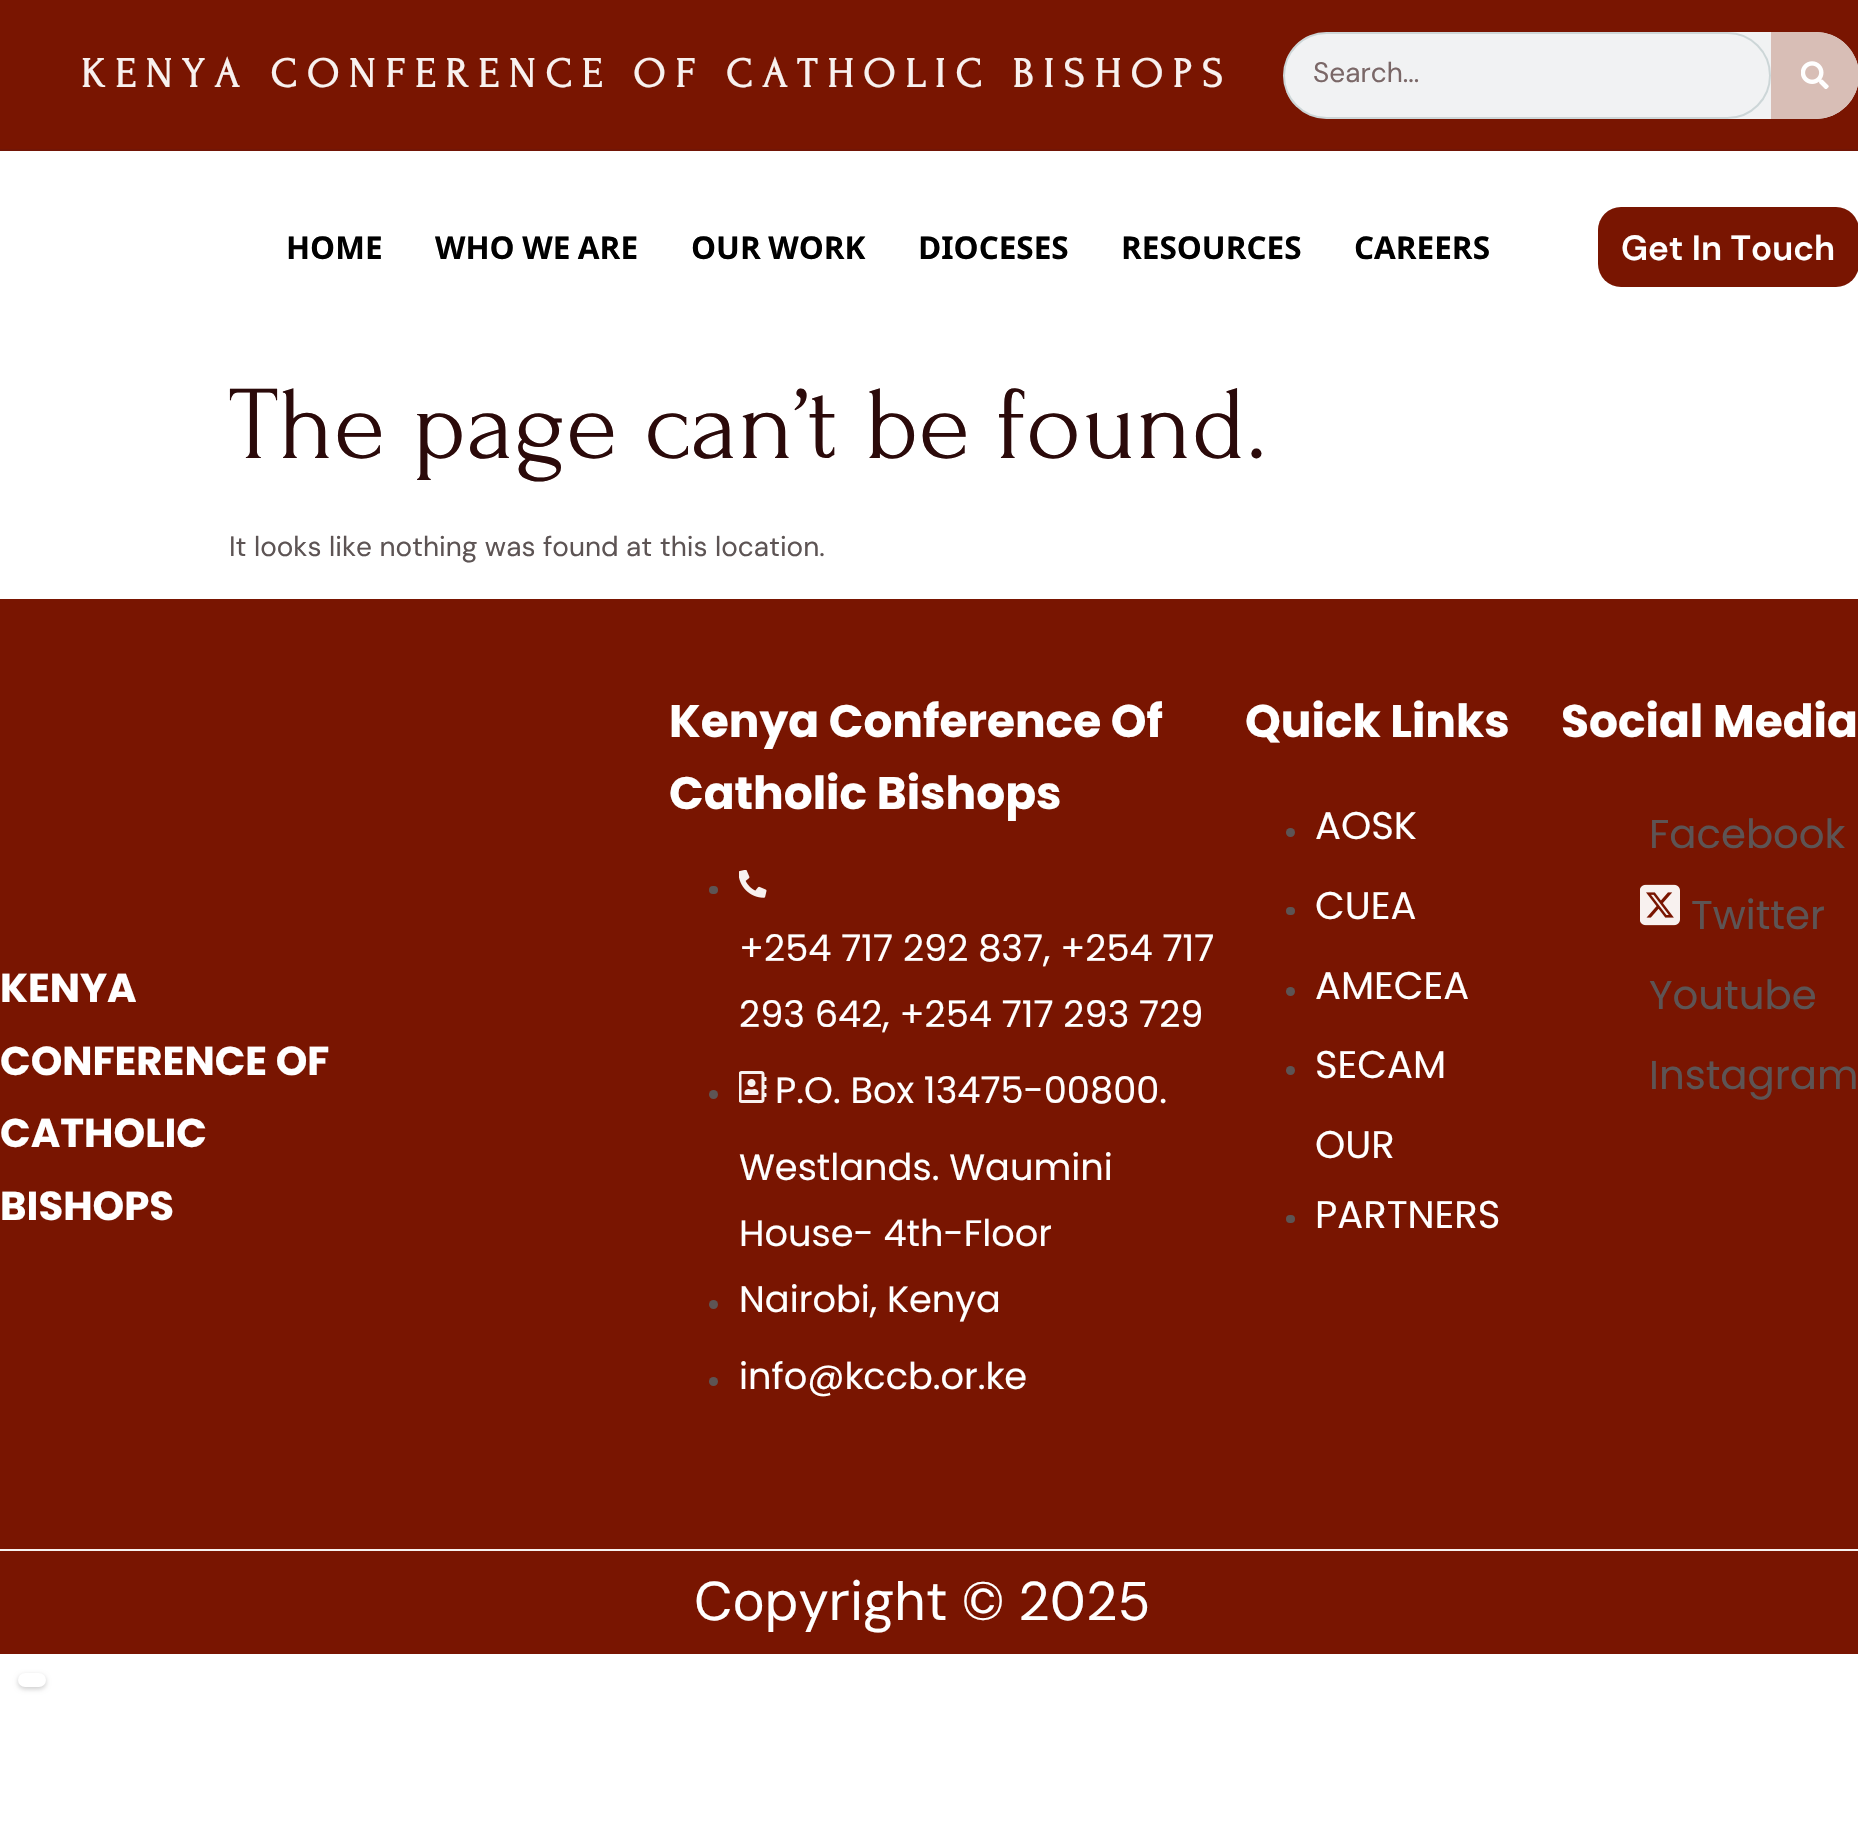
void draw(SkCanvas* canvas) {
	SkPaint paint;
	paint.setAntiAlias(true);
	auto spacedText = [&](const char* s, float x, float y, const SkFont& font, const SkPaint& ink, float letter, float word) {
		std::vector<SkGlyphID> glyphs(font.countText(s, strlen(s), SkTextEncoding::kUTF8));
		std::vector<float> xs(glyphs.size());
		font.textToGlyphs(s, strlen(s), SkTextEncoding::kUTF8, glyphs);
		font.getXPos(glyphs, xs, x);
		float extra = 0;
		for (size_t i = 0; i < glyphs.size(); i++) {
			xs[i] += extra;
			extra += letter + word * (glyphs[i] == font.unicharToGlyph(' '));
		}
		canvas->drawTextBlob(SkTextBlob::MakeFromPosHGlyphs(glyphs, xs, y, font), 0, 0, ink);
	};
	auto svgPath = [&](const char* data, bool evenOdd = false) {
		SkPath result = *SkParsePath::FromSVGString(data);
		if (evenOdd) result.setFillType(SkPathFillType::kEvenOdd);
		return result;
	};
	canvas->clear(0xffffffff);
	paint.setColor(0xff791501);
	canvas->drawRect(SkRect::MakeXYWH(0, 0, 1858, 149), paint);
	paint.setColor(0xff721506);
	canvas->drawRect(SkRect::MakeXYWH(0, 149, 1858, 2), paint);
	SkFont f1(fontMgr->matchFamilyStyle("Forum", SkFontStyle::Bold()), 42);
	f1.setSubpixel(true);
	paint.setColor(0xfff8f1ef);
	spacedText("KENYA CONFERENCE OF CATHOLIC BISHOPS", 81, 87, f1, paint, 10.15, 0);
	paint.setColor(0xfff1f2f3);
	canvas->drawRoundRect(SkRect::MakeXYWH(1283, 32, 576, 87), 43.5, 43.5, paint);
	paint.setStroke(true);
	paint.setStrokeWidth(2);
	paint.setColor(0x2601373e);
	canvas->drawRoundRect(SkRect::MakeXYWH(1284, 33, 486, 85), 42.5, 42.5, paint);
	SkFont f2(fontMgr->matchFamilyStyle("DM Sans", SkFontStyle::Normal()), 28);
	f2.setSubpixel(true);
	paint.setStroke(false);
	paint.setColor(0xff7a6767);
	canvas->drawString("Search...", 1313, 82, f2, paint);
	paint.setColor(0xffd8beb6);
	canvas->drawPath(svgPath("M1771 32H1815.5C1839.5 32 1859 51.5 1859 75.5C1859 99.5 1839.5 119 1815.5 119H1771Z"), paint);
	canvas->drawImageRect(SkImages::DeferredFromEncodedData(SkData::MakeFromFileName("img1.png")), SkRect::MakeXYWH(1801, 61, 28, 28), SkSamplingOptions());
	SkFont f3(fontMgr->matchFamilyStyle("Noto Sans Bamum", SkFontStyle::Bold()), 31.5);
	f3.setSubpixel(true);
	paint.setColor(0xff000000);
	canvas->drawString("HOME", 286, 259, f3, paint);
	canvas->drawString("WHO WE ARE", 435, 259, f3, paint);
	canvas->drawString("OUR WORK", 691, 259, f3, paint);
	canvas->drawString("DIOCESES", 918, 259, f3, paint);
	canvas->drawString("RESOURCES", 1121, 259, f3, paint);
	canvas->drawString("CAREERS", 1354, 259, f3, paint);
	paint.setColor(0xff791501);
	canvas->drawRoundRect(SkRect::MakeXYWH(1598, 207, 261, 80), 23, 23, paint);
	SkFont f4(fontMgr->matchFamilyStyle("DM Sans", SkFontStyle(600, SkFontStyle::kNormal_Width, SkFontStyle::kUpright_Slant)), 35);
	f4.setSubpixel(true);
	paint.setColor(0xffffffff);
	canvas->drawString("Get In Touch", 1621, 260, f4, paint);
	SkFont f5(fontMgr->matchFamilyStyle("Forum", SkFontStyle::Normal()), 105);
	f5.setSubpixel(true);
	paint.setColor(0xff2b0a0a);
	canvas->drawString("The page can’t be found.", 229, 458, f5, paint);
	paint.setColor(0xff5d5454);
	canvas->drawString("It looks like nothing was found at this location.", 229, 556, f2, paint);
	paint.setColor(0xff791501);
	canvas->drawRect(SkRect::MakeXYWH(0, 599, 1858, 950), paint);
	SkFont f6(fontMgr->matchFamilyStyle("Poppins", SkFontStyle::Bold()), 40.25);
	f6.setSubpixel(true);
	paint.setColor(0xffffffff);
	canvas->drawString("KENYA", 0, 1002, f6, paint);
	canvas->drawString("CONFERENCE OF", 0, 1075, f6, paint);
	canvas->drawString("CATHOLIC", 0, 1147, f6, paint);
	canvas->drawString("BISHOPS", 0, 1220, f6, paint);
	SkFont f7(fontMgr->matchFamilyStyle("Poppins", SkFontStyle::Bold()), 45.5);
	f7.setSubpixel(true);
	canvas->drawString("Kenya Conference Of", 669, 737, f7, paint);
	canvas->drawString("Catholic Bishops", 669, 809, f7, paint);
	paint.setColor(0xff5d5454);
	canvas->drawRoundRect(SkRect::MakeXYWH(709, 886, 9, 8), 4, 4, paint);
	canvas->drawImageRect(SkImages::DeferredFromEncodedData(SkData::MakeFromFileName("img2.png")), SkRect::MakeXYWH(739, 870, 28, 28), SkSamplingOptions());
	SkFont f8(fontMgr->matchFamilyStyle("Poppins", SkFontStyle::Normal()), 36.75);
	f8.setSubpixel(true);
	paint.setColor(0xffffffff);
	canvas->drawString("+254 717 292 837, +254 717", 739, 961, f8, paint);
	canvas->drawString("293 642, +254 717 293 729", 739, 1027, f8, paint);
	paint.setColor(0xff5d5454);
	canvas->drawCircle(713.5, 1094.5, 4.5, paint);
	canvas->drawImageRect(SkImages::DeferredFromEncodedData(SkData::MakeFromFileName("img3.png")), SkRect::MakeXYWH(739, 1071, 28, 32), SkSamplingOptions());
	paint.setColor(0xffffffff);
	canvas->drawString("P.O. Box 13475-00800.", 775, 1103, f8, paint);
	paint.setColor(0xff5d5454);
	canvas->drawCircle(713.5, 1304.5, 4.5, paint);
	paint.setColor(0xffffffff);
	canvas->drawString("Westlands. Waumini", 739, 1180, f8, paint);
	canvas->drawString("House- 4th-Floor", 739, 1246, f8, paint);
	canvas->drawString("Nairobi, Kenya", 739, 1312, f8, paint);
	paint.setColor(0xff5d5454);
	canvas->drawCircle(713.5, 1381.5, 4.5, paint);
	paint.setColor(0xffffffff);
	canvas->drawString("info@kccb.or.ke", 739, 1389, f8, paint);
	canvas->drawString("Quick Links", 1245, 737, f7, paint);
	paint.setColor(0xff5d5454);
	canvas->drawCircle(1290.5, 832.5, 4.5, paint);
	SkFont f9(fontMgr->matchFamilyStyle("Poppins", SkFontStyle::Normal()), 38.5);
	f9.setSubpixel(true);
	paint.setColor(0xffffffff);
	canvas->drawString("AOSK", 1315, 839, f9, paint);
	paint.setColor(0xff5d5454);
	canvas->drawRoundRect(SkRect::MakeXYWH(1286, 907, 9, 8), 4, 4, paint);
	paint.setColor(0xffffffff);
	canvas->drawString("CUEA", 1315, 919, f9, paint);
	paint.setColor(0xff5d5454);
	canvas->drawCircle(1290.5, 991.5, 4.5, paint);
	paint.setColor(0xffffffff);
	canvas->drawString("AMECEA", 1315, 999, f9, paint);
	paint.setColor(0xff5d5454);
	canvas->drawCircle(1290.5, 1070.5, 4.5, paint);
	paint.setColor(0xffffffff);
	canvas->drawString("SECAM", 1315, 1078, f9, paint);
	paint.setColor(0xff5d5454);
	canvas->drawRoundRect(SkRect::MakeXYWH(1286, 1215, 9, 8), 4, 4, paint);
	paint.setColor(0xffffffff);
	canvas->drawString("OUR", 1315, 1158, f9, paint);
	canvas->drawString("PARTNERS", 1315, 1228, f9, paint);
	canvas->drawString("Social Media", 1561, 737, f7, paint);
	SkFont f10(fontMgr->matchFamilyStyle("Poppins", SkFontStyle::Normal()), 40.25);
	f10.setSubpixel(true);
	paint.setColor(0xff5d5454);
	canvas->drawString("Facebook", 1649, 848, f10, paint);
	canvas->drawImageRect(SkImages::DeferredFromEncodedData(SkData::MakeFromFileName("img4.png")), SkRect::MakeXYWH(1640, 884, 40, 42), SkSamplingOptions());
	canvas->drawString("Twitter", 1691, 929, f10, paint);
	canvas->drawString("Youtube", 1649, 1009, f10, paint);
	canvas->drawString("Instagram", 1649, 1089, f10, paint);
	paint.setColor(0xff791501);
	canvas->drawRect(SkRect::MakeXYWH(0, 1551, 1858, 103), paint);
	paint.setColor(0xfff8f1ef);
	canvas->drawRect(SkRect::MakeXYWH(0, 1549, 1858, 2), paint);
	SkFont f11(fontMgr->matchFamilyStyle("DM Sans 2", SkFontStyle::Normal()), 54.25);
	f11.setSubpixel(true);
	paint.setColor(0xffffffff);
	spacedText("Copyright © 2025", 694, 1620, f11, paint, 0, -1);
	paint.setColor(0x33000000);
	paint.setMaskFilter(SkMaskFilter::MakeBlur(kNormal_SkBlurStyle, 2.5));
	canvas->drawRoundRect(SkRect::MakeXYWH(18, 1675, 28, 14), 7, 7, paint);
	paint.setMaskFilter(nullptr);
	paint.setColor(0xffffffff);
	canvas->drawRoundRect(SkRect::MakeXYWH(18, 1673, 28, 14), 7, 7, paint);
}
